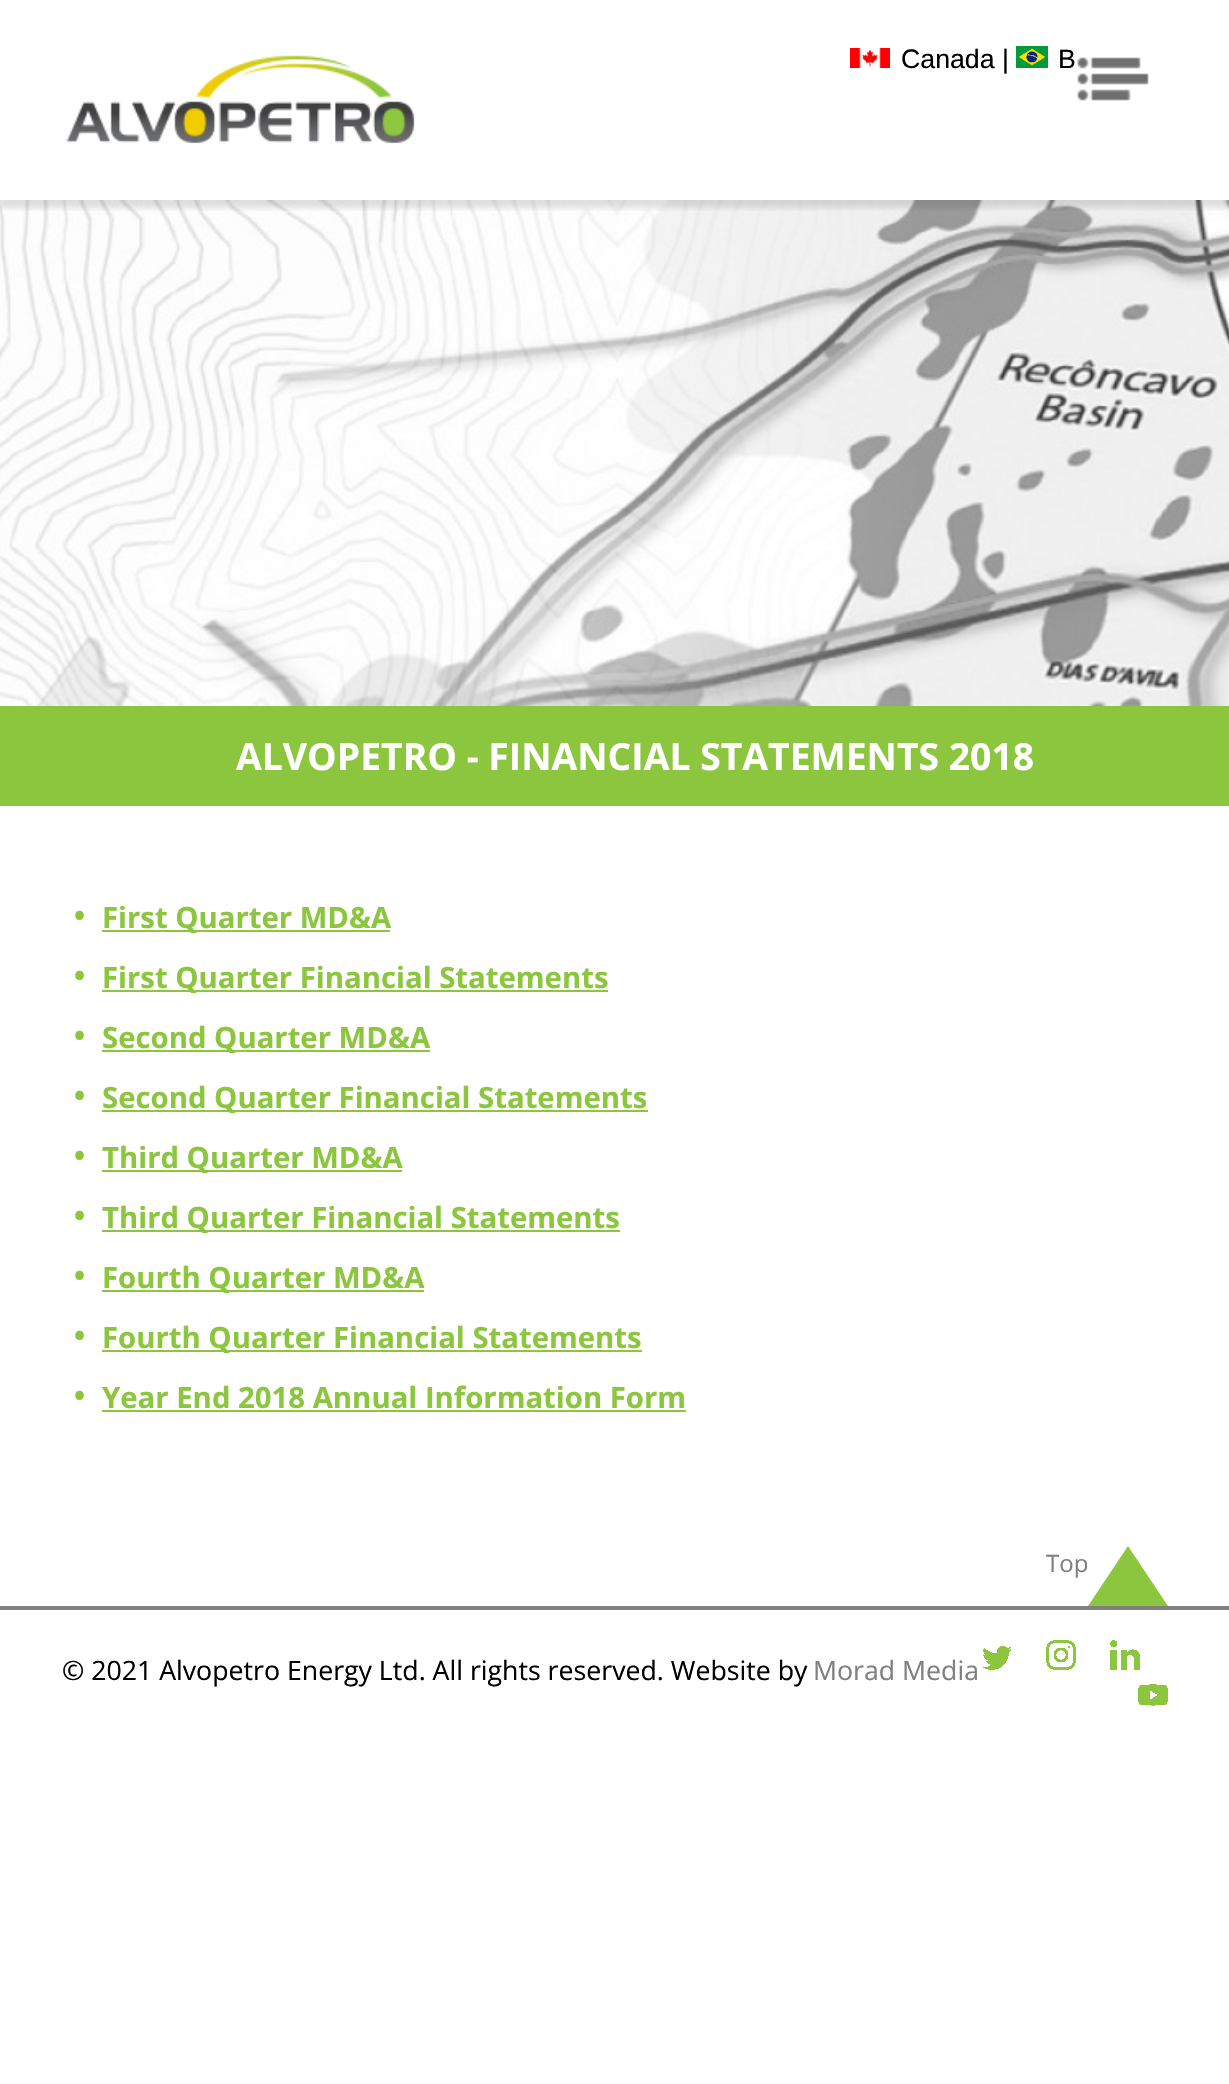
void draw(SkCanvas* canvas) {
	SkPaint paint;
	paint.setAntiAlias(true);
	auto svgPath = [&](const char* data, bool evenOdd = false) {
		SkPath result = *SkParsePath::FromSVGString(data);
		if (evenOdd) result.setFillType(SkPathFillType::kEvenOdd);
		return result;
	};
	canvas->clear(0xffffffff);
	canvas->drawImageRect(SkImages::DeferredFromEncodedData(SkData::MakeFromFileName("img5.png")), SkRect::MakeXYWH(0, 200, 1229, 506), SkSamplingOptions());
	canvas->save();
	canvas->clipRect(SkRect::MakeXYWH(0, 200, 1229, 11));
	paint.setColor(0x26323232);
	paint.setMaskFilter(SkMaskFilter::MakeBlur(kNormal_SkBlurStyle, 3));
	canvas->drawRect(SkRect::MakeXYWH(0, 8, 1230, 200), paint);
	paint.setMaskFilter(nullptr);
	canvas->restore();
	canvas->drawImageRect(SkImages::DeferredFromEncodedData(SkData::MakeFromFileName("img1.png")), SkRect::MakeXYWH(66, 55, 349, 89), SkSamplingOptions());
	canvas->drawImageRect(SkImages::DeferredFromEncodedData(SkData::MakeFromFileName("img2.png")), SkRect::MakeXYWH(850, 48, 40, 20), SkSamplingOptions());
	SkFont f1(fontMgr->matchFamilyStyle("Liberation Sans", SkFontStyle::Normal()), 26.7);
	f1.setSubpixel(true);
	paint.setColor(0xff000000);
	canvas->drawString("Canada |", 901, 68, f1, paint);
	canvas->drawImageRect(SkImages::DeferredFromEncodedData(SkData::MakeFromFileName("img3.png")), SkRect::MakeXYWH(1016, 46, 32, 22), SkSamplingOptions());
	canvas->drawString("B", 1058, 68, f1, paint);
	canvas->drawImageRect(SkImages::DeferredFromEncodedData(SkData::MakeFromFileName("img4.png")), SkRect::MakeXYWH(1077, 57, 72, 44), SkSamplingOptions());
	paint.setColor(0xff8cc63e);
	canvas->drawRect(SkRect::MakeXYWH(0, 706, 1229, 100), paint);
	SkFont f2(fontMgr->matchFamilyStyle("Open Sans", SkFontStyle::Bold()), 37.3);
	f2.setSubpixel(true);
	paint.setColor(0xffffffff);
	canvas->drawString("ALVOPETRO - FINANCIAL STATEMENTS 2018", 236, 770, f2, paint);
	SkFont f3(fontMgr->matchFamilyStyle("Open Sans", SkFontStyle::Normal()), 40);
	f3.setSubpixel(true);
	paint.setColor(0xff8cc63e);
	canvas->drawString("•", 72, 930, f3, paint);
	canvas->drawRect(SkRect::MakeXYWH(102, 930, 288, 2), paint);
	SkFont f4(fontMgr->matchFamilyStyle("Open Sans", SkFontStyle::Bold()), 29.3);
	f4.setSubpixel(true);
	canvas->drawString("First Quarter MD&A", 102, 928, f4, paint);
	canvas->drawString("•", 72, 990, f3, paint);
	canvas->drawRect(SkRect::MakeXYWH(102, 990, 506, 2), paint);
	canvas->drawString("First Quarter Financial Statements", 102, 988, f4, paint);
	canvas->drawString("•", 72, 1050, f3, paint);
	canvas->drawRect(SkRect::MakeXYWH(102, 1050, 328, 2), paint);
	canvas->drawString("Second Quarter MD&A", 102, 1048, f4, paint);
	canvas->drawString("•", 72, 1110, f3, paint);
	canvas->drawRect(SkRect::MakeXYWH(102, 1110, 546, 2), paint);
	canvas->drawString("Second Quarter Financial Statements", 102, 1108, f4, paint);
	canvas->drawString("•", 72, 1170, f3, paint);
	canvas->drawRect(SkRect::MakeXYWH(102, 1170, 300, 2), paint);
	canvas->drawString("Third Quarter MD&A", 102, 1168, f4, paint);
	canvas->drawString("•", 72, 1230, f3, paint);
	canvas->drawRect(SkRect::MakeXYWH(102, 1230, 518, 2), paint);
	canvas->drawString("Third Quarter Financial Statements", 102, 1228, f4, paint);
	canvas->drawString("•", 72, 1290, f3, paint);
	canvas->drawRect(SkRect::MakeXYWH(102, 1290, 322, 2), paint);
	canvas->drawString("Fourth Quarter MD&A", 102, 1288, f4, paint);
	canvas->drawString("•", 72, 1350, f3, paint);
	canvas->drawRect(SkRect::MakeXYWH(102, 1350, 540, 2), paint);
	canvas->drawString("Fourth Quarter Financial Statements", 102, 1348, f4, paint);
	canvas->drawString("•", 72, 1410, f3, paint);
	canvas->drawString("Year End 2018 Annual Information Form", 102, 1408, f4, paint);
	canvas->drawRect(SkRect::MakeXYWH(102, 1410, 584, 2), paint);
	SkFont f5(fontMgr->matchFamilyStyle("Open Sans", SkFontStyle::Normal()), 24);
	f5.setSubpixel(true);
	paint.setColor(0xff808080);
	canvas->drawString("Top", 1046, 1572, f5, paint);
	paint.setColor(0xff8cc63e);
	canvas->drawPath(svgPath("M1168 1606H1088L1128 1546Z"), paint);
	paint.setColor(0xff808080);
	canvas->drawRect(SkRect::MakeXYWH(0, 1606, 1229, 4), paint);
	SkFont f6(fontMgr->matchFamilyStyle("Open Sans", SkFontStyle::Normal()), 26.7);
	f6.setSubpixel(true);
	paint.setColor(0xff000000);
	canvas->drawString("© 2021 Alvopetro Energy Ltd. All rights reserved. Website by", 62, 1680, f6, paint);
	paint.setColor(0xff808080);
	canvas->drawString("Morad Media", 813, 1680, f6, paint);
	canvas->drawImageRect(SkImages::DeferredFromEncodedData(SkData::MakeFromFileName("img6.png")), SkRect::MakeXYWH(983, 1646, 28, 24), SkSamplingOptions());
	canvas->drawImageRect(SkImages::DeferredFromEncodedData(SkData::MakeFromFileName("img7.png")), SkRect::MakeXYWH(1046, 1640, 30, 30), SkSamplingOptions());
	canvas->drawImageRect(SkImages::DeferredFromEncodedData(SkData::MakeFromFileName("img8.png")), SkRect::MakeXYWH(1110, 1640, 30, 30), SkSamplingOptions());
	canvas->drawImageRect(SkImages::DeferredFromEncodedData(SkData::MakeFromFileName("img9.png")), SkRect::MakeXYWH(1138, 1684, 30, 22), SkSamplingOptions());
}
